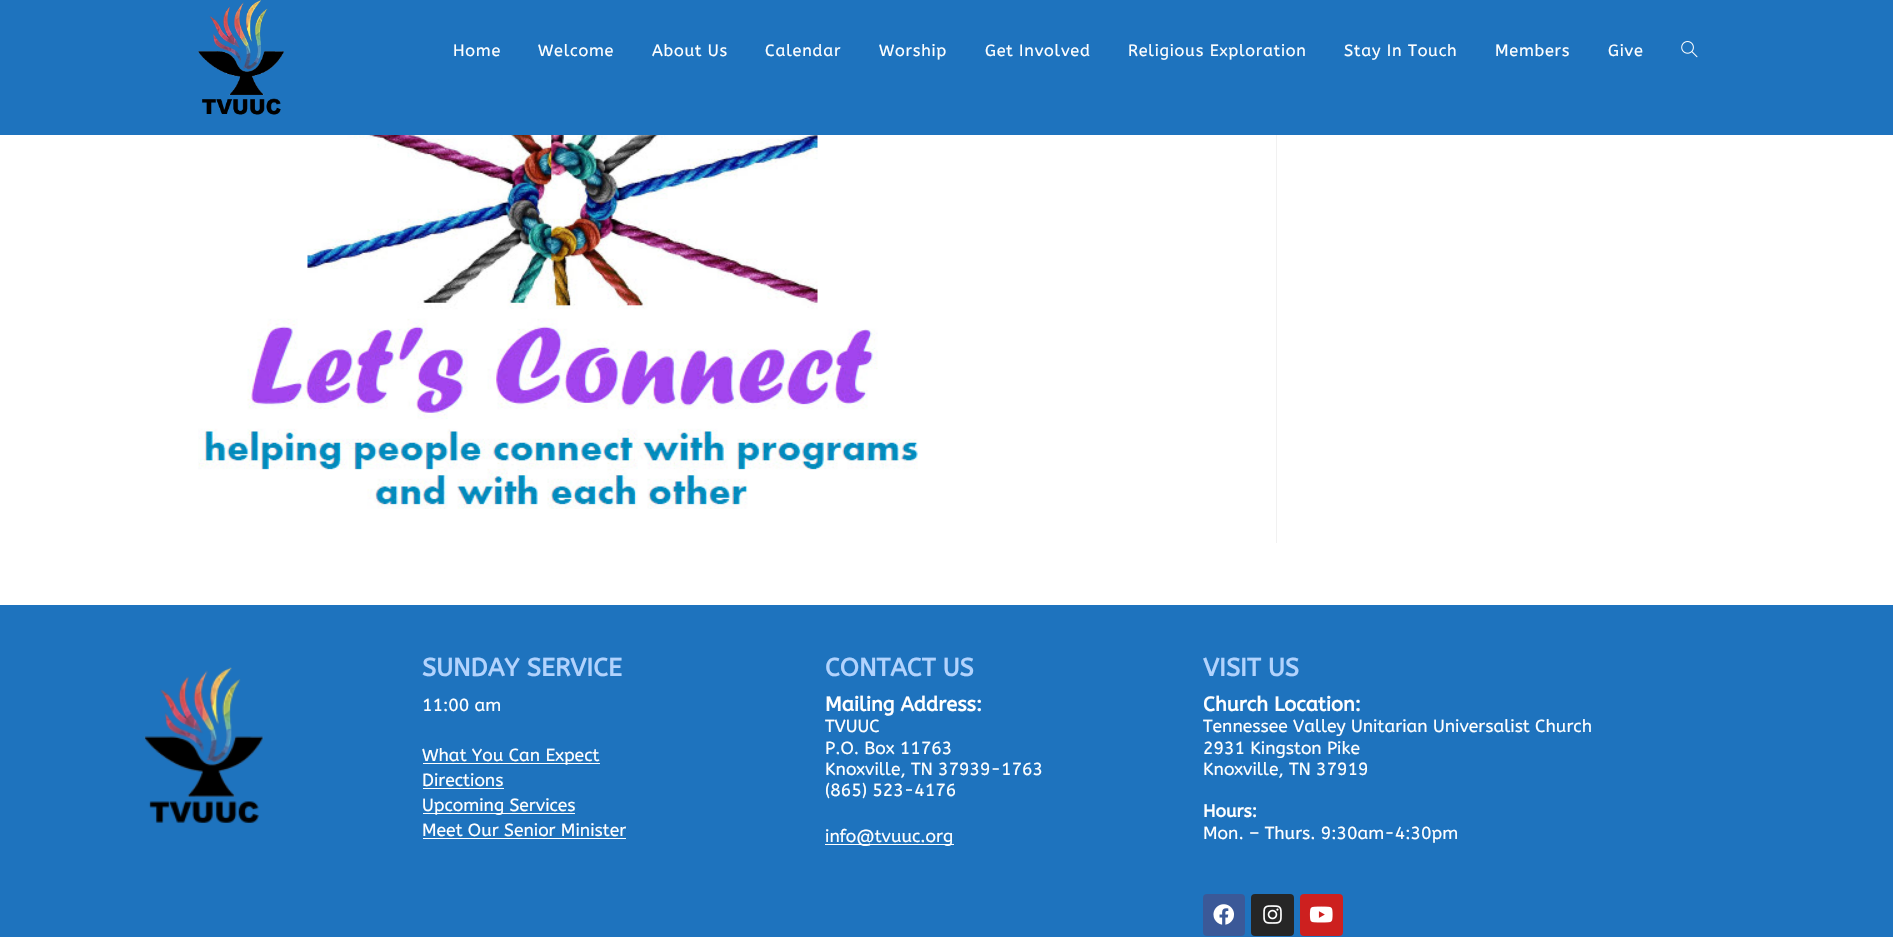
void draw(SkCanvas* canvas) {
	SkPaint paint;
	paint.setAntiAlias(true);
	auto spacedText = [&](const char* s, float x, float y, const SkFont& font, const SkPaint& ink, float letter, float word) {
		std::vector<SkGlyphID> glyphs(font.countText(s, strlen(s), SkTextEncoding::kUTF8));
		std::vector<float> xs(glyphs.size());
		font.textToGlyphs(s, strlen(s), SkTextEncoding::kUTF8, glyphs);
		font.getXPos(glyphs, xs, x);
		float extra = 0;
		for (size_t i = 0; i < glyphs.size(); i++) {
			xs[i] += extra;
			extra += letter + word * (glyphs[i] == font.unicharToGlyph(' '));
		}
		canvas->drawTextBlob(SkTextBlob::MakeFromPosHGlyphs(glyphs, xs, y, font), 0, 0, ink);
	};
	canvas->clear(0xffffffff);
	paint.setColor(0xff1e73be);
	canvas->drawRect(SkRect::MakeXYWH(0, 0, 1893, 135), paint);
	canvas->drawImageRect(SkImages::DeferredFromEncodedData(SkData::MakeFromFileName("img1.png")), SkRect::MakeXYWH(198, 0, 86, 115), SkSamplingOptions());
	SkFont f1(fontMgr->matchFamilyStyle("ABeeZee", SkFontStyle::Normal()), 16.25);
	f1.setSubpixel(true);
	paint.setColor(0xffffffff);
	spacedText("Home", 453, 56, f1, paint, 0.75, 0);
	spacedText("Welcome", 538, 56, f1, paint, 0.75, 0);
	spacedText("About Us", 652, 56, f1, paint, 0.75, 0);
	spacedText("Calendar", 765, 56, f1, paint, 0.75, 0);
	spacedText("Worship", 879, 56, f1, paint, 0.75, 0);
	spacedText("Get Involved", 985, 56, f1, paint, 0.75, 0);
	spacedText("Religious Exploration", 1128, 56, f1, paint, 0.75, 0);
	spacedText("Stay In Touch", 1344, 56, f1, paint, 0.75, 0);
	spacedText("Members", 1495, 56, f1, paint, 0.75, 0);
	spacedText("Give", 1608, 56, f1, paint, 0.75, 0);
	canvas->drawImageRect(SkImages::DeferredFromEncodedData(SkData::MakeFromFileName("img2.png")), SkRect::MakeXYWH(1681, 41, 17, 17), SkSamplingOptions());
	paint.setColor(0xfff1f1f1);
	canvas->drawRect(SkRect::MakeXYWH(1276, 135, 1, 408), paint);
	canvas->drawImageRect(SkImages::DeferredFromEncodedData(SkData::MakeFromFileName("img3.png")), SkRect::MakeXYWH(198, 135, 720, 374), SkSamplingOptions());
	paint.setColor(0xff1e73be);
	canvas->drawRect(SkRect::MakeXYWH(0, 605, 1893, 332), paint);
	canvas->drawImageRect(SkImages::DeferredFromEncodedData(SkData::MakeFromFileName("img4.png")), SkRect::MakeXYWH(144, 667, 120, 156), SkSamplingOptions());
	SkFont f2(fontMgr->matchFamilyStyle("ABeeZee", SkFontStyle::Bold()), 25);
	f2.setSubpixel(true);
	paint.setColor(0xffb2d3fd);
	canvas->drawString("SUNDAY SERVICE", 422, 676, f2, paint);
	SkFont f3(fontMgr->matchFamilyStyle("ABeeZee", SkFontStyle::Normal()), 17.5);
	f3.setSubpixel(true);
	paint.setColor(0xffffffff);
	canvas->drawString("11:00 am", 422, 711, f3, paint);
	canvas->drawRect(SkRect::MakeXYWH(423, 763, 177, 1), paint);
	canvas->drawString("What You Can Expect", 422, 761, f3, paint);
	canvas->drawString("Directions", 422, 786, f3, paint);
	canvas->drawRect(SkRect::MakeXYWH(423, 788, 81, 1), paint);
	canvas->drawRect(SkRect::MakeXYWH(423, 813, 152, 1), paint);
	canvas->drawString("Upcoming Services", 422, 811, f3, paint);
	canvas->drawString("Meet Our Senior Minister", 422, 836, f3, paint);
	canvas->drawRect(SkRect::MakeXYWH(423, 838, 203, 1), paint);
	paint.setColor(0xffb2d3fd);
	canvas->drawString("CONTACT US", 825, 676, f2, paint);
	SkFont f4(fontMgr->matchFamilyStyle("ABeeZee", SkFontStyle::Bold()), 20);
	f4.setSubpixel(true);
	paint.setColor(0xffffffff);
	canvas->drawString("Mailing Address:", 825, 711, f4, paint);
	canvas->drawString("TVUUC", 825, 732, f3, paint);
	canvas->drawString("P.O. Box 11763", 825, 754, f3, paint);
	canvas->drawString("Knoxville, TN 37939-1763", 825, 775, f3, paint);
	canvas->drawString("(865) 523-4176", 825, 796, f3, paint);
	canvas->drawRect(SkRect::MakeXYWH(825, 844, 129, 1), paint);
	canvas->drawString("info@tvuuc.org", 825, 842, f3, paint);
	paint.setColor(0xffb2d3fd);
	canvas->drawString("VISIT US", 1203, 676, f2, paint);
	paint.setColor(0xffffffff);
	canvas->drawString("Church Location:", 1203, 711, f4, paint);
	canvas->drawString("Tennessee Valley Unitarian Universalist Church", 1203, 732, f3, paint);
	canvas->drawString("2931 Kingston Pike", 1203, 754, f3, paint);
	canvas->drawString("Knoxville, TN 37919", 1203, 775, f3, paint);
	SkFont f5(fontMgr->matchFamilyStyle("ABeeZee", SkFontStyle::Bold()), 17.5);
	f5.setSubpixel(true);
	canvas->drawString("Hours:", 1203, 817, f5, paint);
	canvas->drawString("Mon. – Thurs. 9:30am-4:30pm", 1203, 839, f3, paint);
	paint.setColor(0xff3b5998);
	canvas->drawRoundRect(SkRect::MakeXYWH(1203, 894, 42, 42), 4, 4, paint);
	canvas->drawImageRect(SkImages::DeferredFromEncodedData(SkData::MakeFromFileName("img5.png")), SkRect::MakeXYWH(1213, 904, 21, 21), SkSamplingOptions());
	paint.setColor(0xff262626);
	canvas->drawRoundRect(SkRect::MakeXYWH(1251, 894, 43, 42), 4, 4, paint);
	canvas->drawImageRect(SkImages::DeferredFromEncodedData(SkData::MakeFromFileName("img6.png")), SkRect::MakeXYWH(1263, 905, 19, 19), SkSamplingOptions());
	paint.setColor(0xffcd201f);
	canvas->drawRoundRect(SkRect::MakeXYWH(1300, 894, 43, 42), 4, 4, paint);
	canvas->drawImageRect(SkImages::DeferredFromEncodedData(SkData::MakeFromFileName("img7.png")), SkRect::MakeXYWH(1309, 906, 24, 17), SkSamplingOptions());
}
